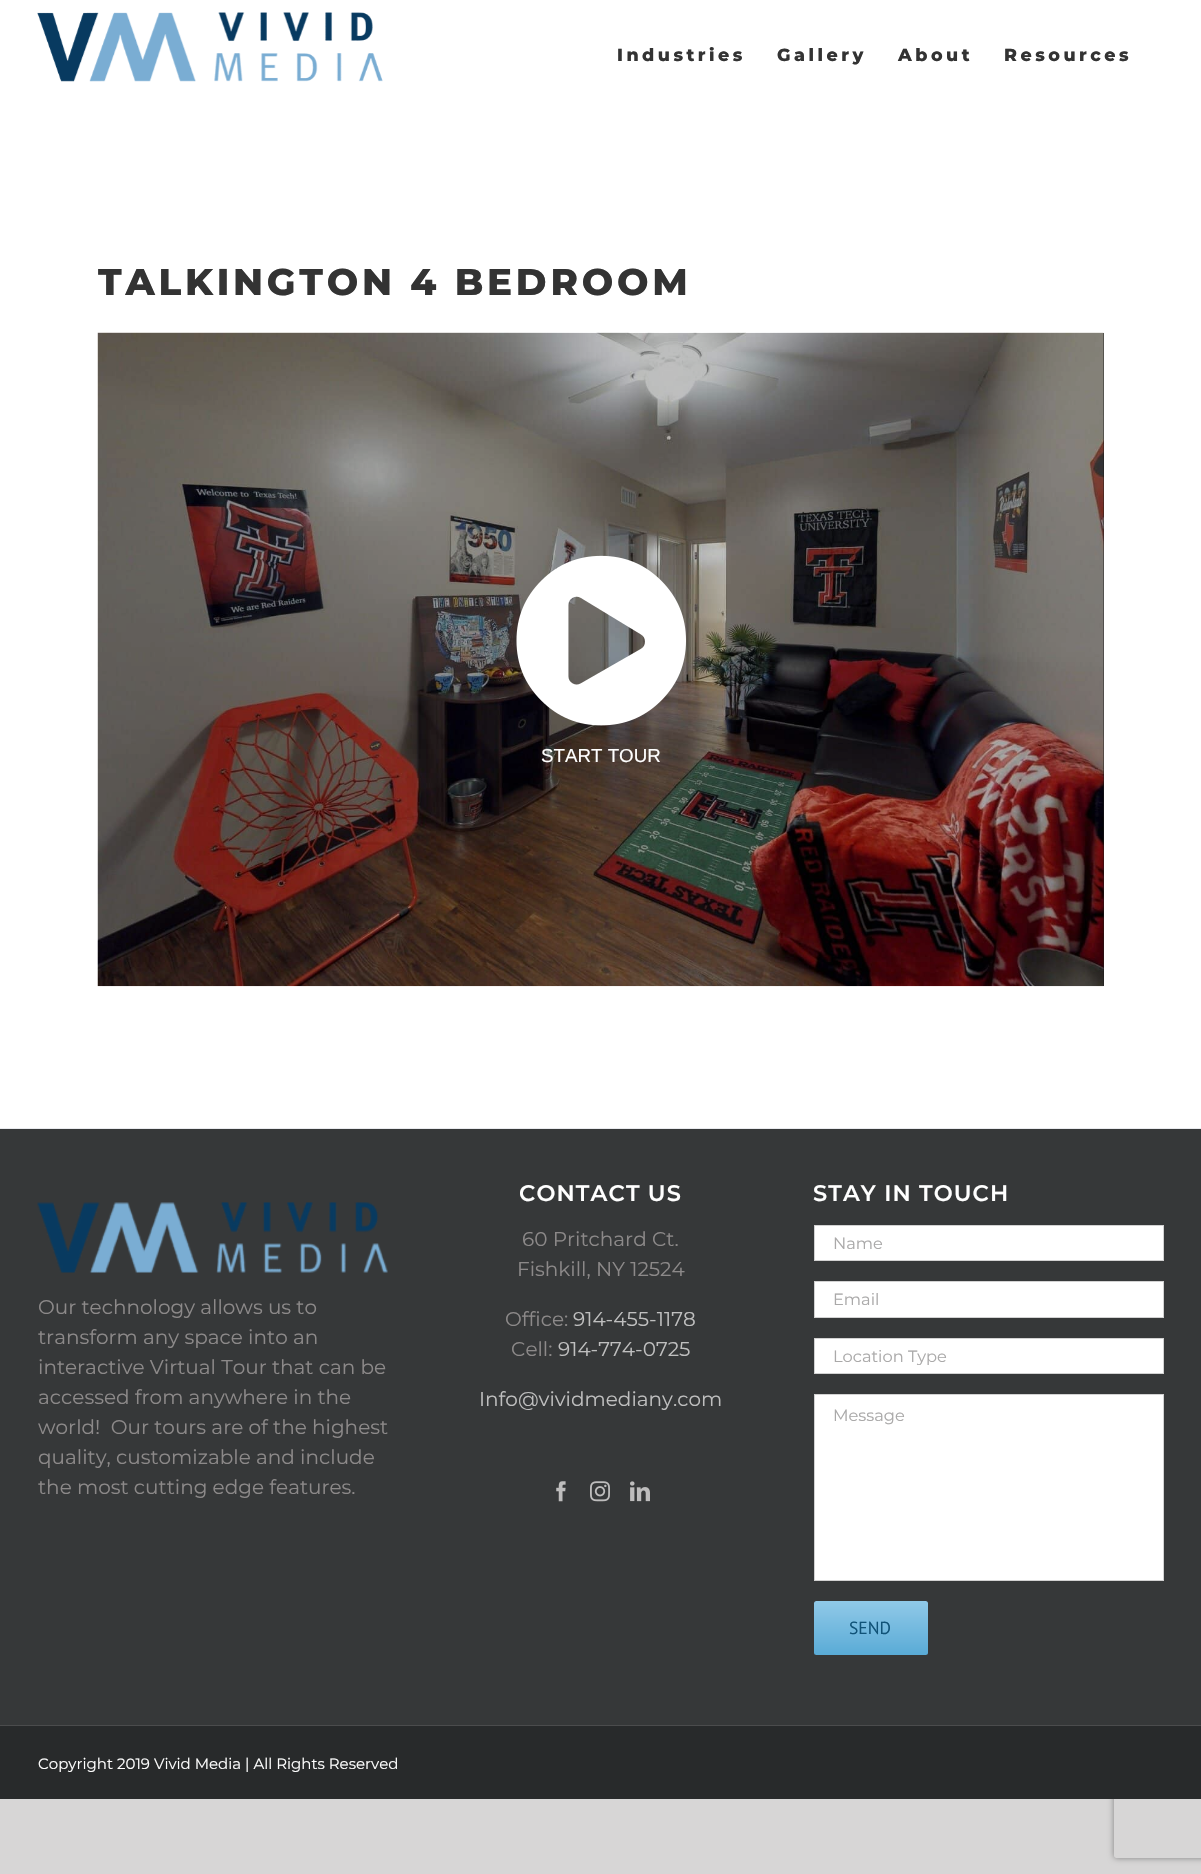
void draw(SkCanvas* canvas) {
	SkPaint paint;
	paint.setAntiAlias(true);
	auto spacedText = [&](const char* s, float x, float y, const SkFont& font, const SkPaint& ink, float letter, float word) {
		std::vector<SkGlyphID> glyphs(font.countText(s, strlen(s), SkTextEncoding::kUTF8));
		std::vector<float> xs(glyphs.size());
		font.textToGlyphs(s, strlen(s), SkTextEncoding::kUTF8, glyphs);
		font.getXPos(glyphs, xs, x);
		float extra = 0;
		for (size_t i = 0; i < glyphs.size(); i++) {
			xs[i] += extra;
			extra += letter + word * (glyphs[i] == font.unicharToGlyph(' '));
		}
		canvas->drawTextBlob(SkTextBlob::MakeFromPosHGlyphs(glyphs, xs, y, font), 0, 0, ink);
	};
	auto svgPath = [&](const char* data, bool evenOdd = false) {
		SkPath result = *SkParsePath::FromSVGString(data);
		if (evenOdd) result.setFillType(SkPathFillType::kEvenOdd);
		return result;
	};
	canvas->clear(0xffd7d6d6);
	paint.setColor(0xffffffff);
	canvas->drawRect(SkRect::MakeXYWH(0, 0, 1201, 1128), paint);
	canvas->drawImageRect(SkImages::DeferredFromEncodedData(SkData::MakeFromFileName("img1.png")), SkRect::MakeXYWH(37, 12, 346, 70), SkSamplingOptions());
	SkFont f1(fontMgr->matchFamilyStyle("Montserrat", SkFontStyle(800, SkFontStyle::kNormal_Width, SkFontStyle::kUpright_Slant)), 17.5);
	f1.setSubpixel(true);
	paint.setColor(0xff333333);
	spacedText("Industries", 617, 61, f1, paint, 3.5, 0);
	spacedText("Gallery", 777, 61, f1, paint, 3.5, 0);
	spacedText("About", 898, 61, f1, paint, 3.5, 0);
	spacedText("Resources", 1004, 61, f1, paint, 3.5, 0);
	SkFont f2(fontMgr->matchFamilyStyle("Montserrat", SkFontStyle(800, SkFontStyle::kNormal_Width, SkFontStyle::kUpright_Slant)), 37.25);
	f2.setSubpixel(true);
	spacedText("TALKINGTON 4 BEDROOM", 98, 295, f2, paint, 3.75, 0);
	paint.setColor(0xff191919);
	canvas->drawRect(SkRect::MakeXYWH(1103, 333, 1, 653), paint);
	canvas->drawImageRect(SkImages::DeferredFromEncodedData(SkData::MakeFromFileName("img2.png")), SkRect::MakeXYWH(97, 332, 1007, 655), SkSamplingOptions());
	canvas->drawImageRect(SkImages::DeferredFromEncodedData(SkData::MakeFromFileName("img3.png")), SkRect::MakeXYWH(516, 555, 170, 171), SkSamplingOptions());
	SkFont f3(fontMgr->matchFamilyStyle("Liberation Sans", SkFontStyle::Normal()), 18.75);
	f3.setSubpixel(true);
	paint.setColor(0xffffffff);
	canvas->drawString("START TOUR", 541, 762, f3, paint);
	paint.setColor(0xff363839);
	canvas->drawRect(SkRect::MakeXYWH(0, 1129, 1201, 596), paint);
	paint.setColor(0xffe9eaee);
	canvas->drawRect(SkRect::MakeXYWH(0, 1128, 1201, 1), paint);
	canvas->drawImageRect(SkImages::DeferredFromEncodedData(SkData::MakeFromFileName("img4.png")), SkRect::MakeXYWH(37, 1202, 351, 71), SkSamplingOptions());
	SkFont f4(fontMgr->matchFamilyStyle("Montserrat", SkFontStyle::Normal()), 20);
	f4.setSubpixel(true);
	paint.setColor(0xff8c8989);
	canvas->drawString("Our technology allows us to", 38, 1314, f4, paint);
	canvas->drawString("transform any space into an", 38, 1344, f4, paint);
	canvas->drawString("interactive Virtual Tour that can be", 38, 1374, f4, paint);
	canvas->drawString("accessed from anywhere in the", 38, 1404, f4, paint);
	canvas->drawString("world!  Our tours are of the highest", 38, 1434, f4, paint);
	canvas->drawString("quality, customizable and include", 38, 1464, f4, paint);
	canvas->drawString("the most cutting edge features.", 38, 1494, f4, paint);
	SkFont f5(fontMgr->matchFamilyStyle("Montserrat", SkFontStyle(600, SkFontStyle::kNormal_Width, SkFontStyle::kUpright_Slant)), 22.5);
	f5.setSubpixel(true);
	paint.setColor(0xffffffff);
	spacedText("CONTACT US", 519, 1201, f5, paint, 1.1, 0);
	paint.setColor(0xff8c8989);
	canvas->drawString("60 Pritchard Ct.", 522, 1246, f4, paint);
	canvas->drawString("Fishkill, NY 12524", 517, 1276, f4, paint);
	canvas->drawString("Office:", 505, 1326, f4, paint);
	paint.setColor(0xffbfbfbf);
	canvas->drawString("914-455-1178", 573, 1326, f4, paint);
	paint.setColor(0xff8c8989);
	canvas->drawString("Cell:", 511, 1356, f4, paint);
	paint.setColor(0xffbfbfbf);
	canvas->drawString("914-774-0725", 558, 1356, f4, paint);
	canvas->drawString("Info@vividmediany.com", 479, 1406, f4, paint);
	canvas->drawImageRect(SkImages::DeferredFromEncodedData(SkData::MakeFromFileName("img5.png")), SkRect::MakeXYWH(556, 1481, 10, 21), SkSamplingOptions());
	canvas->drawImageRect(SkImages::DeferredFromEncodedData(SkData::MakeFromFileName("img6.png")), SkRect::MakeXYWH(590, 1481, 20, 21), SkSamplingOptions());
	canvas->drawImageRect(SkImages::DeferredFromEncodedData(SkData::MakeFromFileName("img7.png")), SkRect::MakeXYWH(630, 1481, 20, 21), SkSamplingOptions());
	paint.setColor(0xffffffff);
	spacedText("STAY IN TOUCH", 813, 1201, f5, paint, 1.1, 0);
	canvas->drawRect(SkRect::MakeXYWH(814.5, 1225.5, 349, 35), paint);
	paint.setStroke(true);
	paint.setStrokeWidth(1);
	paint.setColor(0xffd2d2d2);
	canvas->drawRect(SkRect::MakeXYWH(814.5, 1225.5, 349, 35), paint);
	SkFont f6(fontMgr->matchFamilyStyle("Montserrat", SkFontStyle::Normal()), 16.25);
	f6.setSubpixel(true);
	paint.setStroke(false);
	paint.setColor(0xffaaa9a9);
	canvas->drawString("Name", 833, 1249, f6, paint);
	paint.setColor(0xffffffff);
	canvas->drawRect(SkRect::MakeXYWH(814.5, 1281.5, 349, 36), paint);
	paint.setStroke(true);
	paint.setColor(0xffd2d2d2);
	canvas->drawRect(SkRect::MakeXYWH(814.5, 1281.5, 349, 36), paint);
	paint.setStroke(false);
	paint.setColor(0xffaaa9a9);
	canvas->drawString("Email", 833, 1305, f6, paint);
	paint.setColor(0xffffffff);
	canvas->drawRect(SkRect::MakeXYWH(814.5, 1338.5, 349, 35), paint);
	paint.setStroke(true);
	paint.setColor(0xffd2d2d2);
	canvas->drawRect(SkRect::MakeXYWH(814.5, 1338.5, 349, 35), paint);
	canvas->save();
	canvas->clipRect(SkRect::MakeXYWH(834, 1345, 310, 20));
	paint.setStroke(false);
	paint.setColor(0xffaaa9a9);
	canvas->drawString("Location Type", 833, 1362, f6, paint);
	canvas->restore();
	paint.setColor(0xffffffff);
	canvas->drawRect(SkRect::MakeXYWH(814.5, 1394.5, 349, 186), paint);
	paint.setStroke(true);
	paint.setColor(0xffd2d2d2);
	canvas->drawRect(SkRect::MakeXYWH(814.5, 1394.5, 349, 186), paint);
	paint.setStroke(false);
	paint.setColor(0xffaaa9a9);
	canvas->drawString("Message", 833, 1421, f6, paint);
	{
		const SkColor colors[] = {0xff90c9e8, 0xff5aabd6};
		const float stops[] = {0, 1};
		const SkPoint ends[] = {{871, 1601}, {871, 1655}};
		paint.setShader(SkGradientShader::MakeLinear(ends, colors, stops, 2, SkTileMode::kClamp));
		paint.setAlpha(255);
	}
	canvas->drawRoundRect(SkRect::MakeXYWH(814, 1601, 114, 54), 2.5, 2.5, paint);
	SkFont f7(fontMgr->matchFamilyStyle("PT Sans", SkFontStyle::Normal()), 17.5);
	f7.setSubpixel(true);
	paint.setShader(nullptr);
	paint.setColor(0xff105378);
	canvas->drawString("SEND", 849, 1634, f7, paint);
	canvas->save();
	canvas->clipPath(svgPath("M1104 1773H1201V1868H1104ZM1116.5 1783H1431.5C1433 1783 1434 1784 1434 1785.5V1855.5C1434 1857 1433 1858 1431.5 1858H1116.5C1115 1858 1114 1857 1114 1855.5V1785.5C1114 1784 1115 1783 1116.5 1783Z", true), true);
	paint.setColor(0xff808080);
	paint.setMaskFilter(SkMaskFilter::MakeBlur(kNormal_SkBlurStyle, 3));
	canvas->drawRoundRect(SkRect::MakeXYWH(1114, 1783, 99, 75), 2.5, 2.5, paint);
	paint.setMaskFilter(nullptr);
	canvas->restore();
	paint.setColor(0xff282a2b);
	canvas->drawRect(SkRect::MakeXYWH(0, 1726, 1201, 73), paint);
	paint.setColor(0xff4b4c4d);
	canvas->drawRect(SkRect::MakeXYWH(0, 1725, 1201, 1), paint);
	SkFont f8(fontMgr->matchFamilyStyle("Montserrat", SkFontStyle::Normal()), 15);
	f8.setSubpixel(true);
	paint.setColor(0xffffffff);
	canvas->drawString("Copyright 2019 Vivid Media | All Rights Reserved", 38, 1769, f8, paint);
}
